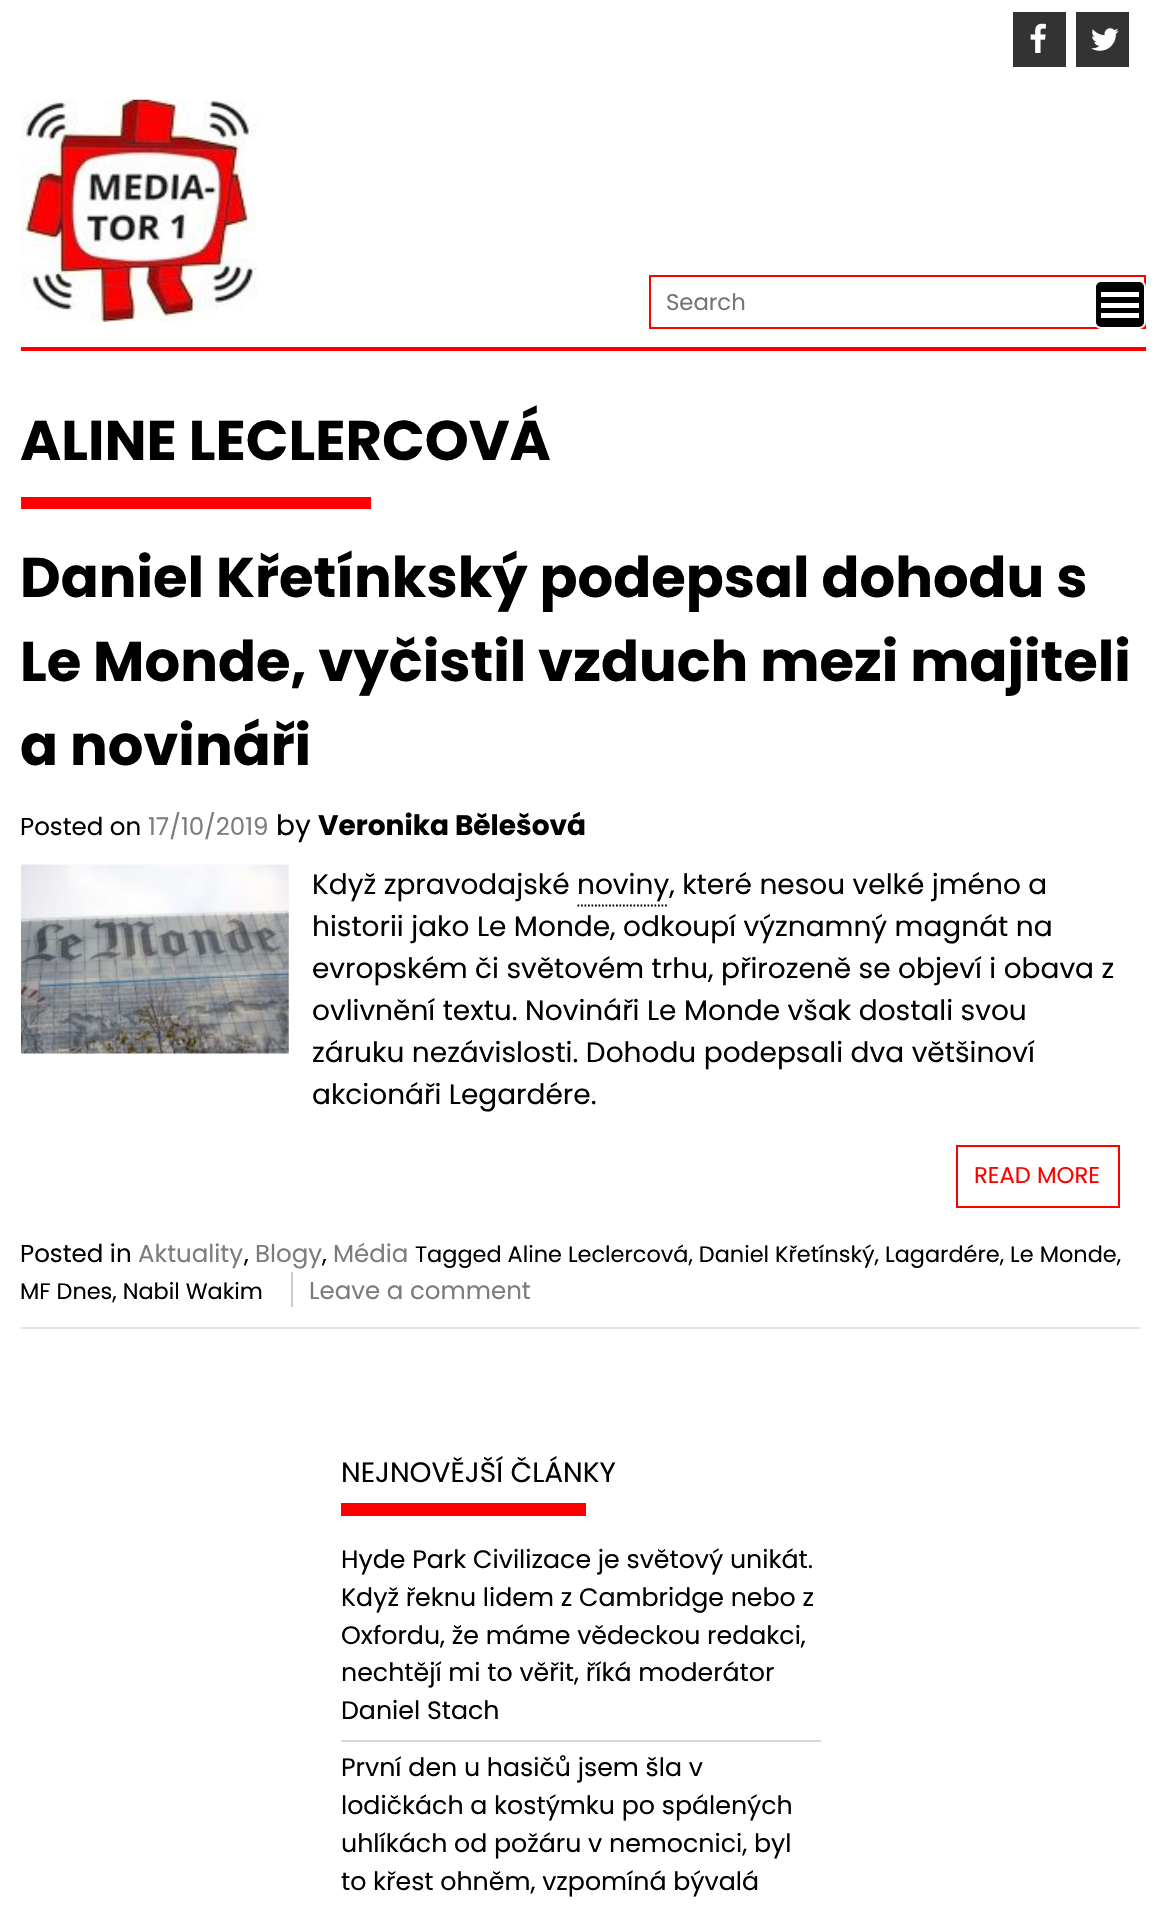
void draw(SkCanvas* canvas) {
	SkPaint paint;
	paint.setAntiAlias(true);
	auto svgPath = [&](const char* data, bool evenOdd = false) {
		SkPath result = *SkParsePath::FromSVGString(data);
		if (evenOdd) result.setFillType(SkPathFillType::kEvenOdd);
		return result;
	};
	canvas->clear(0xffffffff);
	paint.setColor(0xff333333);
	canvas->drawRect(SkRect::MakeXYWH(1013, 12, 53, 55), paint);
	canvas->drawImageRect(SkImages::DeferredFromEncodedData(SkData::MakeFromFileName("img1.png")), SkRect::MakeXYWH(1030, 23, 16, 30), SkSamplingOptions());
	canvas->drawRect(SkRect::MakeXYWH(1076, 12, 53, 55), paint);
	canvas->drawImageRect(SkImages::DeferredFromEncodedData(SkData::MakeFromFileName("img2.png")), SkRect::MakeXYWH(1091, 28, 28, 23), SkSamplingOptions());
	canvas->drawImageRect(SkImages::DeferredFromEncodedData(SkData::MakeFromFileName("img3.png")), SkRect::MakeXYWH(21, 99, 236, 223), SkSamplingOptions());
	paint.setColor(0xffff0000);
	canvas->drawRect(SkRect::MakeXYWH(21, 347, 1125, 4), paint);
	paint.setStroke(true);
	paint.setStrokeWidth(2);
	canvas->drawRect(SkRect::MakeXYWH(650, 276, 495, 52), paint);
	SkFont f1(fontMgr->matchFamilyStyle("Poppins", SkFontStyle::Normal()), 22.75);
	f1.setSubpixel(true);
	paint.setStroke(false);
	paint.setColor(0xff757575);
	canvas->drawString("Search", 666, 310, f1, paint);
	paint.setColor(0xff000000);
	canvas->drawRoundRect(SkRect::MakeXYWH(1095, 281, 50, 47), 6, 6, paint);
	paint.setStroke(true);
	paint.setColor(0xffffffff);
	canvas->drawRoundRect(SkRect::MakeXYWH(1095, 281, 50, 47), 6, 6, paint);
	paint.setStroke(false);
	canvas->drawRect(SkRect::MakeXYWH(1101, 313, 38, 5), paint);
	canvas->drawRect(SkRect::MakeXYWH(1101, 303, 38, 5), paint);
	canvas->drawRect(SkRect::MakeXYWH(1101, 292, 38, 5), paint);
	SkFont f2(fontMgr->matchFamilyStyle("Poppins", SkFontStyle::Bold()), 56);
	f2.setSubpixel(true);
	paint.setColor(0xff000000);
	canvas->drawString("ALINE LECLERCOVÁ", 20, 460, f2, paint);
	paint.setColor(0xffff0000);
	canvas->drawRect(SkRect::MakeXYWH(21, 497, 350, 12), paint);
	paint.setColor(0xffe5e5e5);
	canvas->drawRect(SkRect::MakeXYWH(21, 1327, 1120, 2), paint);
	paint.setColor(0xff000000);
	canvas->drawString("Daniel Křetínkský podepsal dohodu s", 20, 597, f2, paint);
	canvas->drawString("Le Monde, vyčistil vzduch mezi majiteli", 20, 681, f2, paint);
	canvas->drawString("a novináři", 20, 765, f2, paint);
	SkFont f3(fontMgr->matchFamilyStyle("Poppins", SkFontStyle::Normal()), 24.5);
	f3.setSubpixel(true);
	canvas->drawString("Posted on", 20, 835, f3, paint);
	paint.setColor(0xff7c7c7c);
	canvas->drawString("17/10/2019", 148, 835, f3, paint);
	SkFont f4(fontMgr->matchFamilyStyle("Poppins", SkFontStyle::Normal()), 28);
	f4.setSubpixel(true);
	paint.setColor(0xff000000);
	canvas->drawString("by", 276, 835, f4, paint);
	SkFont f5(fontMgr->matchFamilyStyle("Poppins", SkFontStyle::Bold()), 28);
	f5.setSubpixel(true);
	canvas->drawString("Veronika Bělešová", 318, 835, f5, paint);
	canvas->drawImageRect(SkImages::DeferredFromEncodedData(SkData::MakeFromFileName("img4.png")), SkRect::MakeXYWH(21, 864, 268, 190), SkSamplingOptions());
	canvas->drawString("Když zpravodajské noviny, které nesou velké jméno a", 312, 894, f4, paint);
	paint.setStroke(true);
	paint.setStrokeWidth(1.8);
	paint.setPathEffect(SkDashPathEffect::Make({{1.75f, 1.75f}}, 0));
	canvas->drawPath(svgPath("M577.5 905.5H668.5"), paint);
	paint.setPathEffect(nullptr);
	paint.setStroke(false);
	canvas->drawString("historii jako Le Monde, odkoupí významný magnát na", 312, 936, f4, paint);
	canvas->drawString("evropském či světovém trhu, přirozeně se objeví i obava z", 312, 978, f4, paint);
	canvas->drawString("ovlivnění textu. Novináři Le Monde však dostali svou", 312, 1020, f4, paint);
	canvas->drawString("záruku nezávislosti. Dohodu podepsali dva většinoví", 312, 1062, f4, paint);
	canvas->drawString("akcionáři Legardére.", 312, 1104, f4, paint);
	paint.setStroke(true);
	paint.setStrokeWidth(2);
	paint.setColor(0xffff0000);
	canvas->drawRect(SkRect::MakeXYWH(957, 1146, 162, 61), paint);
	paint.setStroke(false);
	canvas->drawString("READ MORE", 974, 1183, f1, paint);
	paint.setColor(0xff000000);
	canvas->drawString("Posted in", 20, 1262, f3, paint);
	paint.setColor(0xff7c7c7c);
	canvas->drawString("Aktuality", 138, 1262, f3, paint);
	paint.setColor(0xff000000);
	canvas->drawString(",", 244, 1262, f3, paint);
	paint.setColor(0xff7c7c7c);
	canvas->drawString("Blogy", 255, 1262, f3, paint);
	paint.setColor(0xff000000);
	canvas->drawString(",", 322, 1262, f3, paint);
	paint.setColor(0xff7c7c7c);
	canvas->drawString("Média", 333, 1262, f3, paint);
	SkFont f6(fontMgr->matchFamilyStyle("Poppins", SkFontStyle::Normal()), 22.4);
	f6.setSubpixel(true);
	paint.setColor(0xff000000);
	canvas->drawString("Tagged Aline Leclercová, Daniel Křetínský, Lagardére, Le Monde,", 415, 1262, f6, paint);
	canvas->drawString("MF Dnes, Nabil Wakim", 20, 1299, f6, paint);
	paint.setColor(0xff7c7c7c);
	canvas->drawString("Leave a comment", 309, 1299, f3, paint);
	paint.setColor(0xffcccccc);
	canvas->drawRect(SkRect::MakeXYWH(291, 1272, 2, 35), paint);
	paint.setColor(0xff000000);
	canvas->drawString("NEJNOVĚJŠÍ ČLÁNKY", 341, 1482, f4, paint);
	paint.setColor(0xffff0000);
	canvas->drawRect(SkRect::MakeXYWH(341, 1503, 245, 13), paint);
	paint.setColor(0xffd9d9d9);
	canvas->drawRect(SkRect::MakeXYWH(341, 1740, 480, 2), paint);
	SkFont f7(fontMgr->matchFamilyStyle("Poppins", SkFontStyle::Normal()), 25.25);
	f7.setSubpixel(true);
	paint.setColor(0xff000000);
	canvas->drawString("Hyde Park Civilizace je světový unikát.", 341, 1568, f7, paint);
	canvas->drawString("Když řeknu lidem z Cambridge nebo z", 341, 1606, f7, paint);
	canvas->drawString("Oxfordu, že máme vědeckou redakci,", 341, 1644, f7, paint);
	canvas->drawString("nechtějí mi to věřit, říká moderátor", 341, 1681, f7, paint);
	canvas->drawString("Daniel Stach", 341, 1719, f7, paint);
	canvas->drawString("První den u hasičů jsem šla v", 341, 1776, f7, paint);
	canvas->drawString("lodičkách a kostýmku po spálených", 341, 1814, f7, paint);
	canvas->drawString("uhlíkách od požáru v nemocnici, byl", 341, 1852, f7, paint);
	canvas->drawString("to křest ohněm, vzpomíná bývalá", 341, 1890, f7, paint);
}
